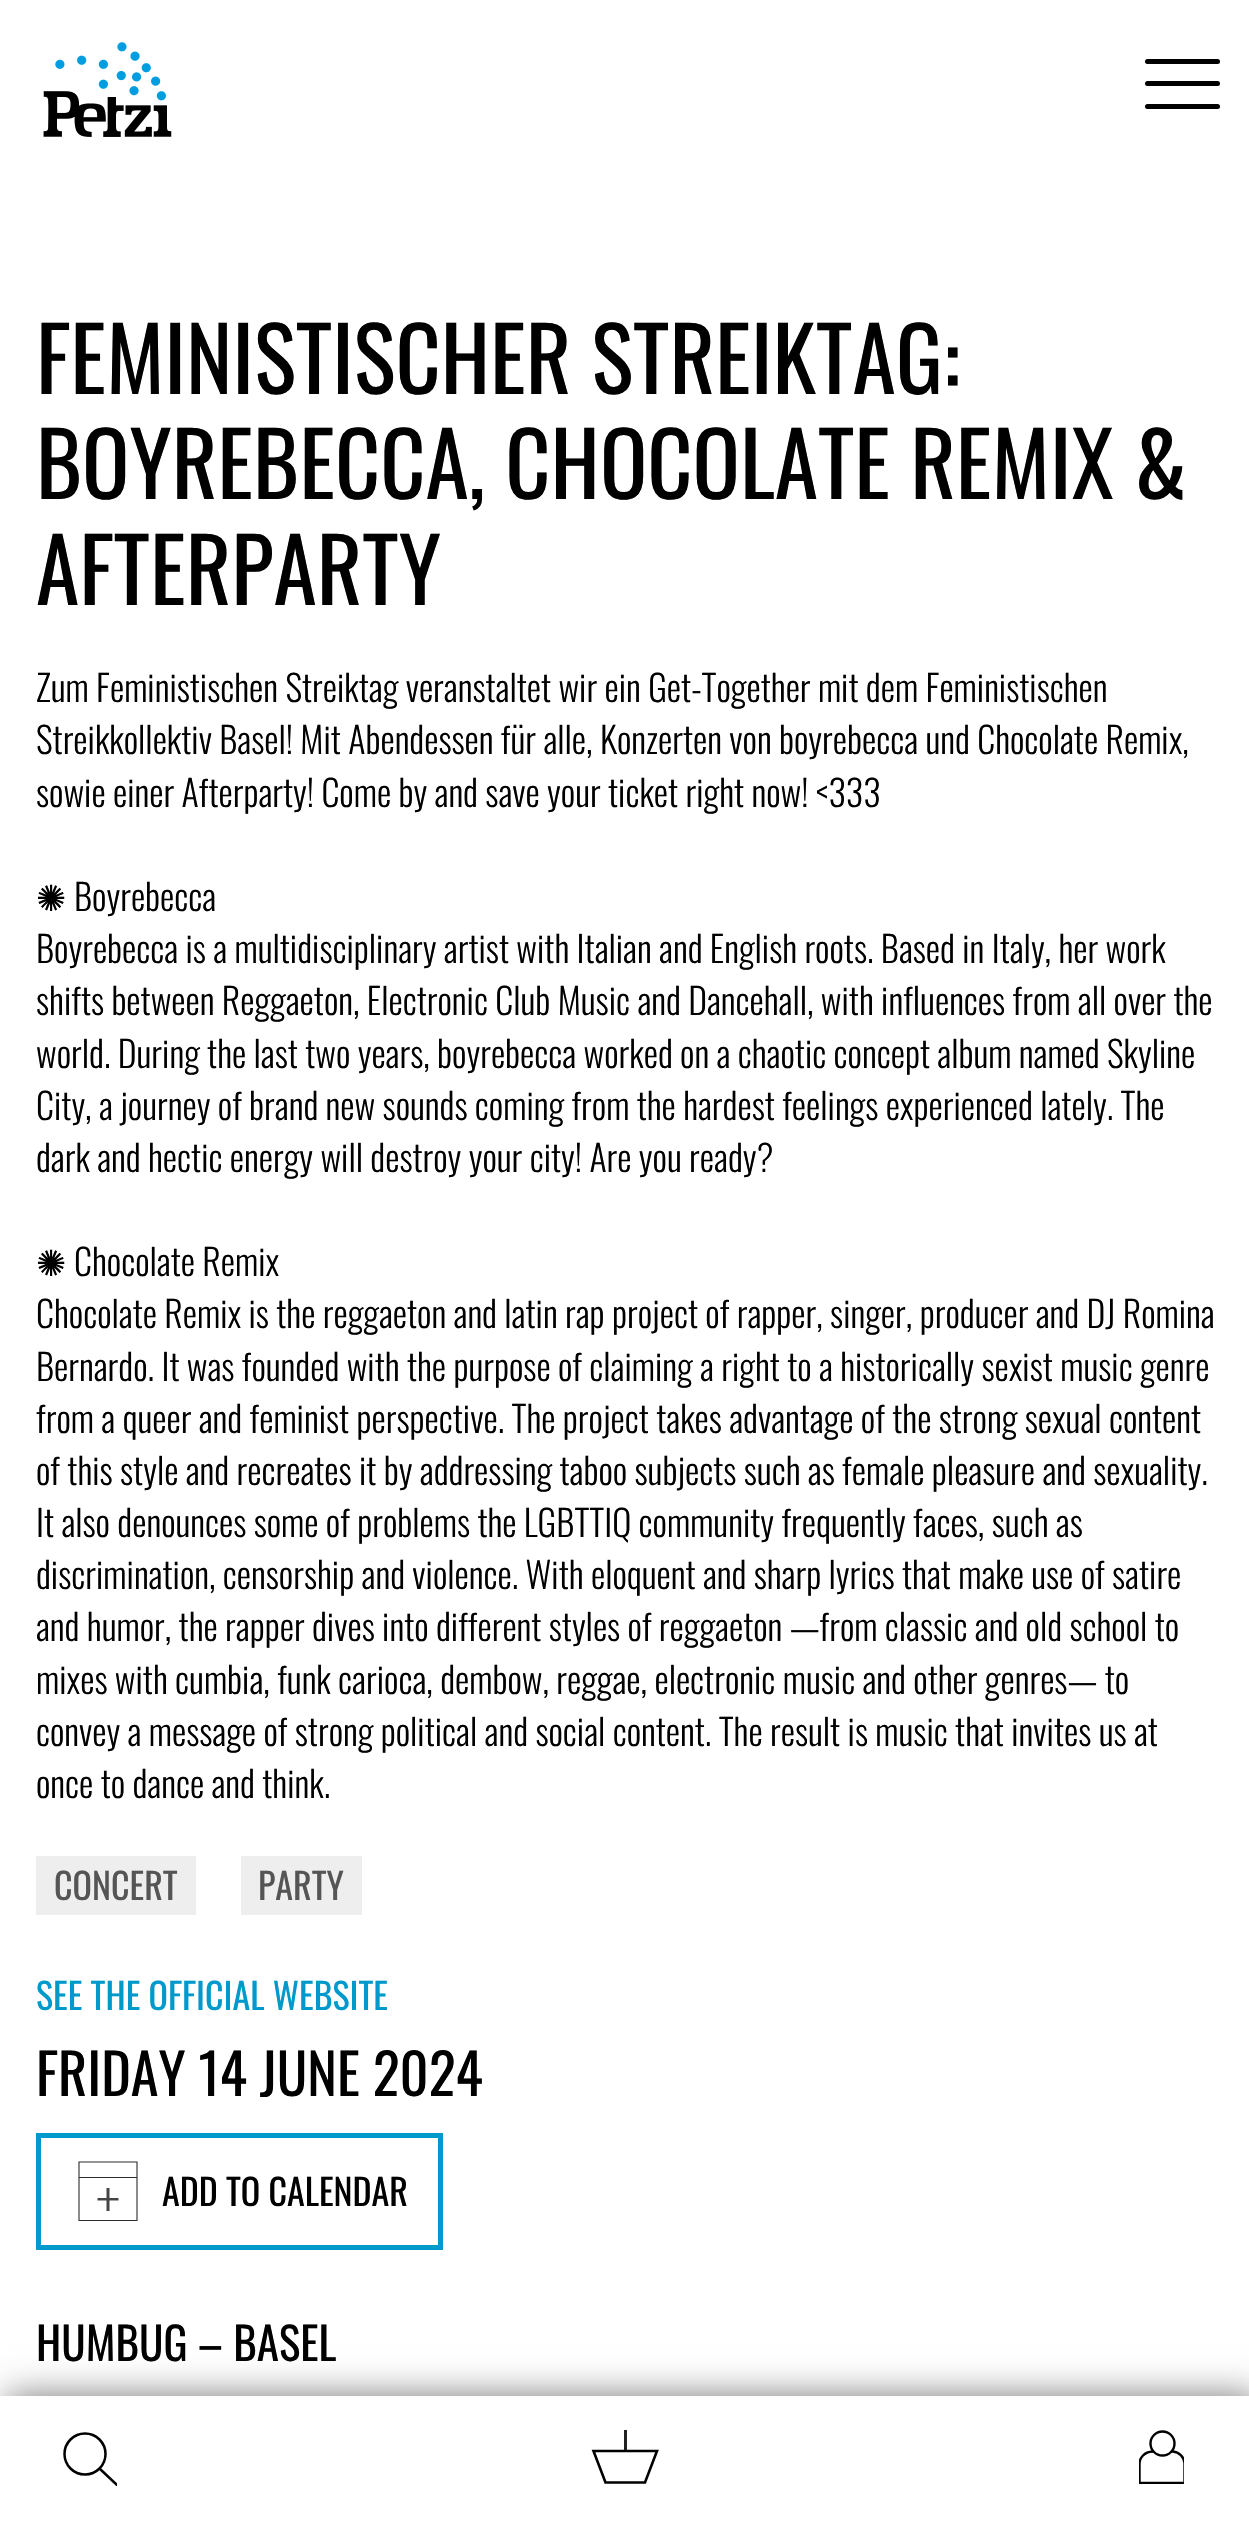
void draw(SkCanvas* canvas) {
	SkPaint paint;
	paint.setAntiAlias(true);
	auto svgPath = [&](const char* data, bool evenOdd = false) {
		SkPath result = *SkParsePath::FromSVGString(data);
		if (evenOdd) result.setFillType(SkPathFillType::kEvenOdd);
		return result;
	};
	canvas->clear(0xffffffff);
	canvas->drawImageRect(SkImages::DeferredFromEncodedData(SkData::MakeFromFileName("img1.png")), SkRect::MakeXYWH(43, 42, 129, 95), SkSamplingOptions());
	paint.setColor(0xff000000);
	canvas->drawRoundRect(SkRect::MakeXYWH(1145, 81, 75, 5), 2.5, 2.5, paint);
	canvas->drawRoundRect(SkRect::MakeXYWH(1145, 59, 75, 5), 2.5, 2.5, paint);
	canvas->drawRoundRect(SkRect::MakeXYWH(1145, 104, 75, 5), 2.5, 2.5, paint);
	SkFont f1(fontMgr->matchFamilyStyle("Oswald", SkFontStyle::Normal()), 87.9);
	f1.setSubpixel(true);
	canvas->drawString("FEMINISTISCHER STREIKTAG:", 36, 394, f1, paint);
	canvas->drawString("BOYREBECCA, CHOCOLATE REMIX &", 36, 499, f1, paint);
	canvas->drawString("AFTERPARTY", 36, 605, f1, paint);
	SkFont f2(fontMgr->matchFamilyStyle("Oswald", SkFontStyle(300, SkFontStyle::kNormal_Width, SkFontStyle::kUpright_Slant)), 36);
	f2.setSubpixel(true);
	canvas->drawString("Zum Feministischen Streiktag veranstaltet wir ein Get-Together mit dem Feministischen", 36, 702, f2, paint);
	canvas->drawString("Streikkollektiv Basel! Mit Abendessen für alle, Konzerten von boyrebecca und Chocolate Remix,", 36, 754, f2, paint);
	canvas->drawString("sowie einer Afterparty! Come by and save your ticket right now! <333", 36, 807, f2, paint);
	SkFont f3(fontMgr->matchFamilyStyle("DejaVu Sans", SkFontStyle::Normal()), 36);
	f3.setSubpixel(true);
	canvas->drawString("✺", 36, 911, f3, paint);
	canvas->drawString("Boyrebecca", 74, 911, f2, paint);
	canvas->drawString("Boyrebecca is a multidisciplinary artist with Italian and English roots. Based in Italy, her work", 36, 963, f2, paint);
	canvas->drawString("shifts between Reggaeton, Electronic Club Music and Dancehall, with influences from all over the", 36, 1015, f2, paint);
	canvas->drawString("world. During the last two years, boyrebecca worked on a chaotic concept album named Skyline", 36, 1068, f2, paint);
	canvas->drawString("City, a journey of brand new sounds coming from the hardest feelings experienced lately. The", 36, 1120, f2, paint);
	canvas->drawString("dark and hectic energy will destroy your city! Are you ready?", 36, 1172, f2, paint);
	canvas->drawString("✺", 36, 1276, f3, paint);
	canvas->drawString("Chocolate Remix", 74, 1276, f2, paint);
	canvas->drawString("Chocolate Remix is the reggaeton and latin rap project of rapper, singer, producer and DJ Romina", 36, 1328, f2, paint);
	canvas->drawString("Bernardo. It was founded with the purpose of claiming a right to a historically sexist music genre", 36, 1381, f2, paint);
	canvas->drawString("from a queer and feminist perspective. The project takes advantage of the strong sexual content", 36, 1433, f2, paint);
	canvas->drawString("of this style and recreates it by addressing taboo subjects such as female pleasure and sexuality.", 36, 1485, f2, paint);
	canvas->drawString("It also denounces some of problems the LGBTTIQ community frequently faces, such as", 36, 1537, f2, paint);
	canvas->drawString("discrimination, censorship and violence. With eloquent and sharp lyrics that make use of satire", 36, 1589, f2, paint);
	canvas->drawString("and humor, the rapper dives into different styles of reggaeton —from classic and old school to", 36, 1641, f2, paint);
	canvas->drawString("mixes with cumbia, funk carioca, dembow, reggae, electronic music and other genres— to", 36, 1694, f2, paint);
	canvas->drawString("convey a message of strong political and social content. The result is music that invites us at", 36, 1746, f2, paint);
	canvas->drawString("once to dance and think.", 36, 1798, f2, paint);
	paint.setColor(0xffeeeeee);
	canvas->drawRect(SkRect::MakeXYWH(36, 1856, 160, 59), paint);
	SkFont f4(fontMgr->matchFamilyStyle("Oswald", SkFontStyle::Normal()), 36);
	f4.setSubpixel(true);
	paint.setColor(0xff555555);
	canvas->drawString("CONCERT", 54, 1900, f4, paint);
	paint.setColor(0xffeeeeee);
	canvas->drawRect(SkRect::MakeXYWH(241, 1856, 121, 59), paint);
	paint.setColor(0xff555555);
	canvas->drawString("PARTY", 258, 1900, f4, paint);
	paint.setColor(0xff0099cb);
	canvas->drawString("SEE THE OFFICIAL WEBSITE", 36, 2010, f4, paint);
	SkFont f5(fontMgr->matchFamilyStyle("Oswald", SkFontStyle::Normal()), 56.25);
	f5.setSubpixel(true);
	paint.setColor(0xff000000);
	canvas->drawString("FRIDAY 14 JUNE 2024", 36, 2096, f5, paint);
	paint.setStroke(true);
	paint.setStrokeWidth(5);
	paint.setColor(0xff0099cb);
	canvas->drawRect(SkRect::MakeXYWH(38.5, 2135.5, 402, 112), paint);
	paint.setStrokeWidth(1.1);
	paint.setColor(0xff2c2c2c);
	canvas->drawPath(svgPath("M79 2162H137V2220.5H79ZM137 2177.5H79"), paint);
	paint.setStroke(false);
	paint.setColor(0xff454545);
	canvas->drawPath(svgPath("M106.5 2211V2200.5H97.5V2198H106.5V2188H109.5V2198H118.5V2200.5H109.5V2211Z"), paint);
	paint.setColor(0xff000000);
	canvas->drawString("ADD TO CALENDAR", 162, 2206, f4, paint);
	SkFont f6(fontMgr->matchFamilyStyle("Oswald", SkFontStyle::Normal()), 45);
	f6.setSubpixel(true);
	canvas->drawString("HUMBUG – BASEL", 36, 2361, f6, paint);
	paint.setColor(0xff777777);
	paint.setMaskFilter(SkMaskFilter::MakeBlur(kNormal_SkBlurStyle, 17));
	canvas->drawRect(SkRect::MakeXYWH(7, 2396, 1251, 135), paint);
	paint.setMaskFilter(nullptr);
	paint.setColor(0xffffffff);
	canvas->drawRect(SkRect::MakeXYWH(0, 2396, 1249, 134), paint);
	paint.setStroke(true);
	paint.setStrokeWidth(2.5);
	paint.setColor(0xff000000);
	canvas->drawCircle(85, 2454, 20.5, paint);
	canvas->save();
	canvas->clipRect(SkRect::MakeXYWH(63, 2432, 54, 54));
	canvas->drawPath(svgPath("M99.5 2468.5L117.5 2485.5"), paint);
	canvas->restore();
	paint.setStrokeWidth(2.6);
	canvas->drawPath(svgPath("M593.5 2451H657L645 2482.5H605.5Z"), paint);
	paint.setStroke(false);
	paint.setColor(0xde000000);
	canvas->drawRect(SkRect::MakeXYWH(624, 2430, 3, 21), paint);
	canvas->save();
	canvas->clipRect(SkRect::MakeXYWH(1139, 2430, 45, 54));
	paint.setStroke(true);
	paint.setStrokeWidth(2.4);
	paint.setColor(0xff000000);
	canvas->drawPath(svgPath("M1139.5 2483H1184.5V2463C1184 2457 1179 2452 1173 2451.5H1152.5C1144.5 2452 1139.5 2457.5 1139.5 2464Z"), paint);
	canvas->restore();
	paint.setStroke(false);
	paint.setColor(0xffffffff);
	canvas->drawCircle(1162.5, 2443.5, 12, paint);
	paint.setStroke(true);
	paint.setColor(0xff000000);
	canvas->drawCircle(1162.5, 2443.5, 12, paint);
}
